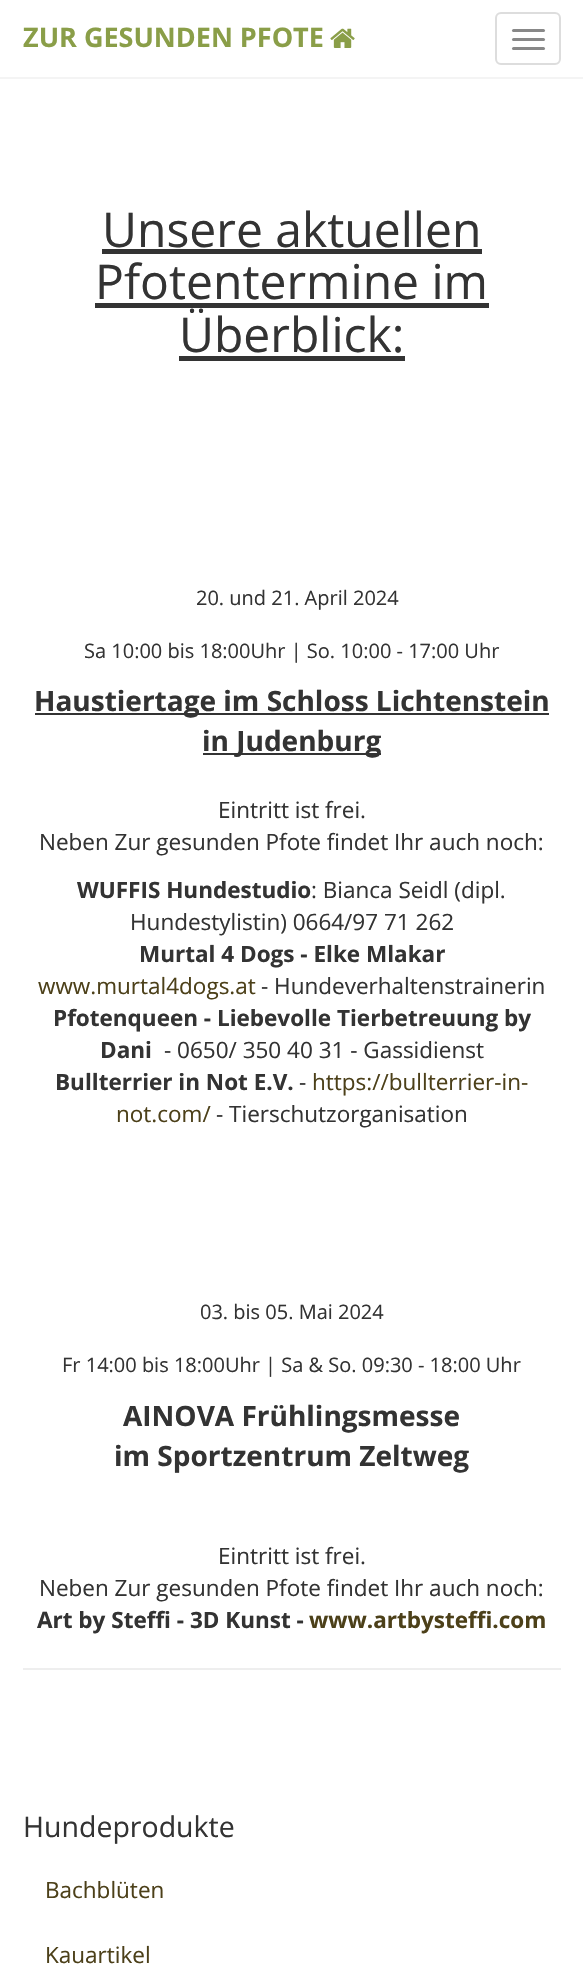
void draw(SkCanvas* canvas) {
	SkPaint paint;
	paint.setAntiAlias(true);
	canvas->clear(0xffffffff);
	paint.setColor(0xfff4f4f4);
	canvas->drawRect(SkRect::MakeXYWH(0, 77, 583, 2), paint);
	SkFont f1(fontMgr->matchFamilyStyle("Open Sans", SkFontStyle::Bold()), 27);
	f1.setSubpixel(true);
	paint.setColor(0xff8a9e48);
	canvas->drawString("ZUR GESUNDEN PFOTE", 23, 47, f1, paint);
	canvas->drawImageRect(SkImages::DeferredFromEncodedData(SkData::MakeFromFileName("img1.png")), SkRect::MakeXYWH(330, 28, 25, 20), SkSamplingOptions());
	paint.setStroke(true);
	paint.setStrokeWidth(2);
	paint.setColor(0xffdddddd);
	canvas->drawRoundRect(SkRect::MakeXYWH(496, 13, 64, 51), 5, 5, paint);
	paint.setStroke(false);
	paint.setColor(0xff888888);
	canvas->drawRoundRect(SkRect::MakeXYWH(512, 29, 33, 3), 1.5, 1.5, paint);
	canvas->drawRoundRect(SkRect::MakeXYWH(512, 38, 33, 3), 1.5, 1.5, paint);
	canvas->drawRoundRect(SkRect::MakeXYWH(512, 47, 33, 3), 1.5, 1.5, paint);
	SkFont f2(fontMgr->matchFamilyStyle("Open Sans", SkFontStyle::Normal()), 48);
	f2.setSubpixel(true);
	paint.setColor(0xff333333);
	canvas->drawString("Unsere aktuellen", 102, 247, f2, paint);
	canvas->drawRect(SkRect::MakeXYWH(102, 249, 380, 5), paint);
	canvas->drawString("Pfotentermine im", 95, 299, f2, paint);
	canvas->drawRect(SkRect::MakeXYWH(95, 303, 394, 5), paint);
	canvas->drawString("Überblick:", 179, 352, f2, paint);
	canvas->drawRect(SkRect::MakeXYWH(179, 356, 226, 5), paint);
	SkFont f3(fontMgr->matchFamilyStyle("Open Sans", SkFontStyle::Normal()), 20);
	f3.setSubpixel(true);
	canvas->drawString("20. und 21. April 2024", 196, 605, f3, paint);
	canvas->drawString("Sa 10:00 bis 18:00Uhr | So. 10:00 - 17:00 Uhr", 84, 658, f3, paint);
	canvas->drawRect(SkRect::MakeXYWH(35, 713, 514, 2), paint);
	SkFont f4(fontMgr->matchFamilyStyle("Open Sans", SkFontStyle::Bold()), 28);
	f4.setSubpixel(true);
	canvas->drawString("Haustiertage im Schloss Lichtenstein", 34, 711, f4, paint);
	canvas->drawRect(SkRect::MakeXYWH(203, 753, 178, 2), paint);
	canvas->drawString("in Judenburg", 202, 751, f4, paint);
	SkFont f5(fontMgr->matchFamilyStyle("Open Sans", SkFontStyle::Normal()), 22.5);
	f5.setSubpixel(true);
	canvas->drawString("Eintritt ist frei.", 218, 818, f5, paint);
	canvas->drawString("Neben Zur gesunden Pfote findet Ihr auch noch:", 39, 850, f5, paint);
	SkFont f6(fontMgr->matchFamilyStyle("Open Sans", SkFontStyle::Bold()), 22.5);
	f6.setSubpixel(true);
	canvas->drawString("WUFFIS Hundestudio", 77, 898, f6, paint);
	canvas->drawString(": Bianca Seidl (dipl.", 311, 898, f5, paint);
	canvas->drawString("Hundestylistin) 0664/97 71 262", 130, 930, f5, paint);
	canvas->drawString("Murtal 4 Dogs - Elke Mlakar", 139, 962, f6, paint);
	paint.setColor(0xff4c4019);
	canvas->drawString("www.murtal4dogs.at", 38, 994, f5, paint);
	paint.setColor(0xff333333);
	canvas->drawString("- Hundeverhaltenstrainerin", 261, 994, f5, paint);
	canvas->drawString("Pfotenqueen - Liebevolle Tierbetreuung by", 53, 1026, f6, paint);
	canvas->drawString("Dani", 100, 1058, f6, paint);
	canvas->drawString("- 0650/ 350 40 31 - Gassidienst", 164, 1058, f5, paint);
	canvas->drawString("Bullterrier in Not E.V.", 55, 1090, f6, paint);
	canvas->drawString("-", 299, 1090, f5, paint);
	paint.setColor(0xff4c4019);
	canvas->drawString("https://bullterrier-in-", 312, 1090, f5, paint);
	canvas->drawString("not.com/", 116, 1122, f5, paint);
	paint.setColor(0xff333333);
	canvas->drawString("- Tierschutzorganisation", 216, 1122, f5, paint);
	canvas->drawString("03. bis 05. Mai 2024", 200, 1319, f3, paint);
	canvas->drawString("Fr 14:00 bis 18:00Uhr | Sa & So. 09:30 - 18:00 Uhr", 62, 1372, f3, paint);
	canvas->drawString("AINOVA Frühlingsmesse", 123, 1426, f4, paint);
	canvas->drawString("im Sportzentrum Zeltweg", 114, 1466, f4, paint);
	canvas->drawString("Eintritt ist frei.", 218, 1564, f5, paint);
	canvas->drawString("Neben Zur gesunden Pfote findet Ihr auch noch:", 39, 1596, f5, paint);
	canvas->drawString("Art by Steffi - 3D Kunst -", 37, 1628, f6, paint);
	paint.setColor(0xff4c4019);
	canvas->drawString("www.artbysteffi.com", 309, 1628, f6, paint);
	paint.setColor(0xffeeeeee);
	canvas->drawRect(SkRect::MakeXYWH(23, 1668, 538, 2), paint);
	SkFont f7(fontMgr->matchFamilyStyle("Open Sans", SkFontStyle::Normal()), 28.5);
	f7.setSubpixel(true);
	paint.setColor(0xff333333);
	canvas->drawString("Hundeprodukte", 23, 1837, f7, paint);
	paint.setColor(0xff4c4019);
	canvas->drawString("Bachblüten", 45, 1898, f5, paint);
	canvas->drawString("Kauartikel", 45, 1963, f5, paint);
}
